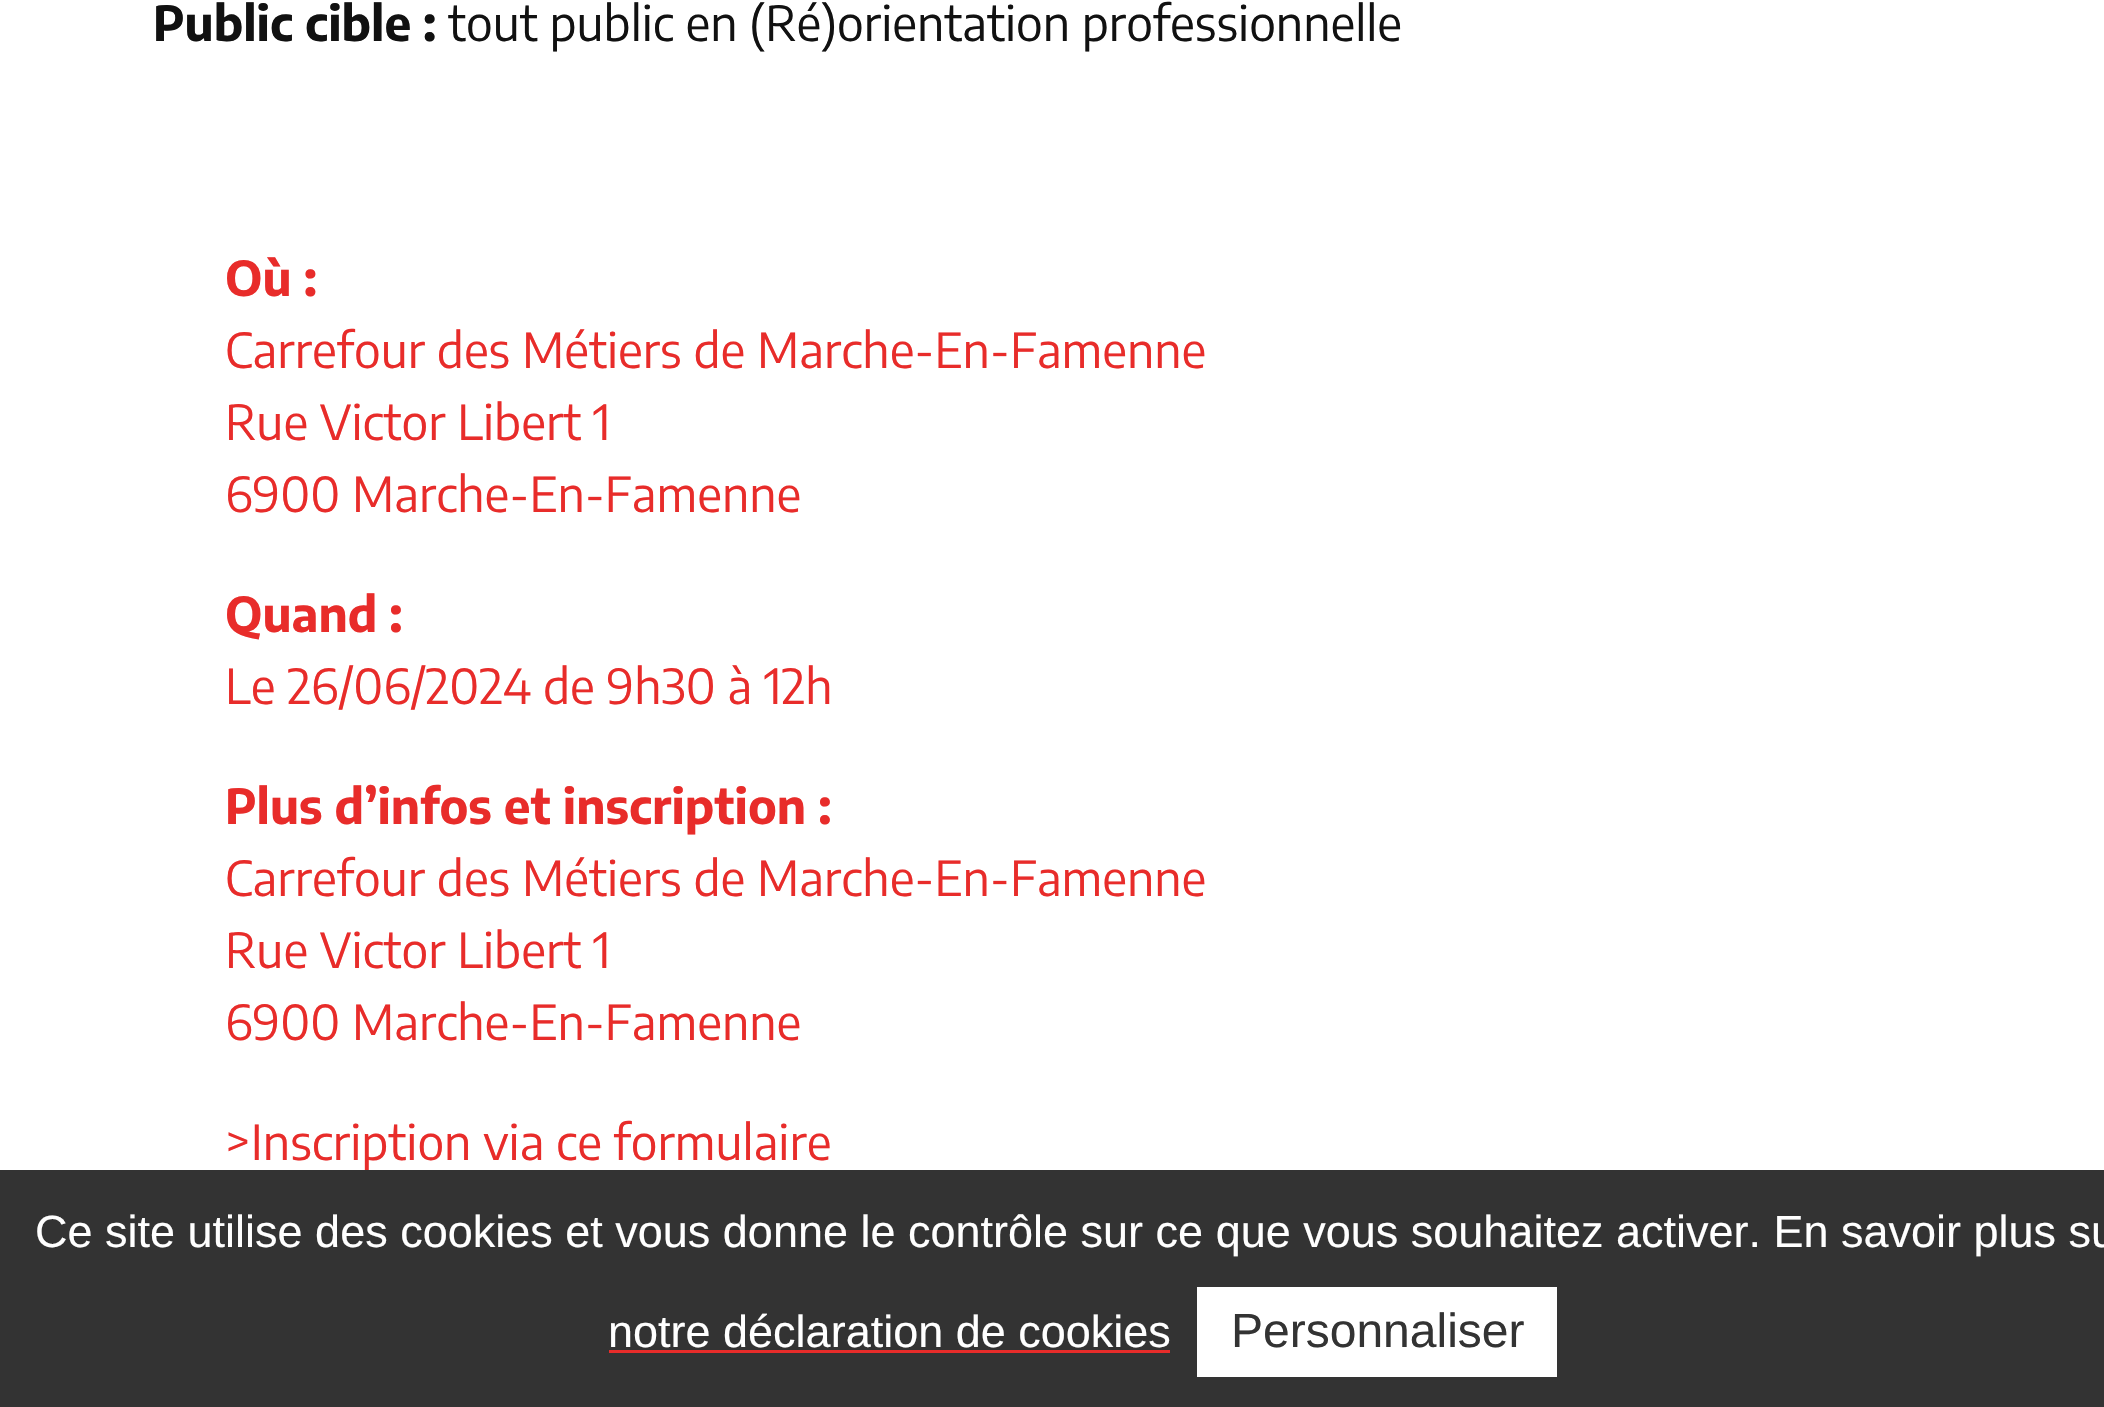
void draw(SkCanvas* canvas) {
	SkPaint paint;
	paint.setAntiAlias(true);
	canvas->clear(0xffffffff);
	SkFont f1(fontMgr->matchFamilyStyle("Encode Sans", SkFontStyle::Bold()), 48);
	f1.setSubpixel(true);
	paint.setColor(0xff111111);
	canvas->drawString("Public cible :", 153, 41, f1, paint);
	SkFont f2(fontMgr->matchFamilyStyle("Encode Sans", SkFontStyle::Normal()), 48);
	f2.setSubpixel(true);
	canvas->drawString("tout public en (Ré)orientation professionnelle", 448, 41, f2, paint);
	paint.setColor(0xffe82c2a);
	canvas->drawString("Où :", 225, 296, f1, paint);
	canvas->drawString("Carrefour des Métiers de Marche-En-Famenne", 225, 368, f2, paint);
	canvas->drawString("Rue Victor Libert 1", 225, 440, f2, paint);
	canvas->drawString("6900 Marche-En-Famenne", 225, 512, f2, paint);
	canvas->drawString("Quand :", 225, 632, f1, paint);
	canvas->drawString("Le 26/06/2024 de 9h30 à 12h", 225, 704, f2, paint);
	canvas->drawString("Plus d’infos et inscription :", 225, 824, f1, paint);
	canvas->drawString("Carrefour des Métiers de Marche-En-Famenne", 225, 896, f2, paint);
	canvas->drawString("Rue Victor Libert 1", 225, 968, f2, paint);
	canvas->drawString("6900 Marche-En-Famenne", 225, 1040, f2, paint);
	canvas->drawString(">Inscription via ce formulaire", 225, 1160, f2, paint);
	paint.setColor(0xff333333);
	canvas->drawRect(SkRect::MakeXYWH(0, 1170, 2104, 237), paint);
	SkFont f3(fontMgr->matchFamilyStyle("Liberation Sans", SkFontStyle::Normal()), 45);
	f3.setSubpixel(true);
	paint.setColor(0xffffffff);
	canvas->drawString("Ce site utilise des cookies et vous donne le contrôle sur ce que vous souhaitez activer. En savoir plus su", 35, 1247, f3, paint);
	canvas->drawString("notre déclaration de cookies", 608, 1347, f3, paint);
	paint.setColor(0xffe82c2a);
	canvas->drawRect(SkRect::MakeXYWH(609, 1350, 561, 3), paint);
	paint.setColor(0xffffffff);
	canvas->drawRect(SkRect::MakeXYWH(1197, 1287, 360, 90), paint);
	SkFont f4(fontMgr->matchFamilyStyle("Liberation Sans", SkFontStyle::Normal()), 48);
	f4.setSubpixel(true);
	paint.setColor(0xff333333);
	canvas->drawString("Personnaliser", 1231, 1347, f4, paint);
}
